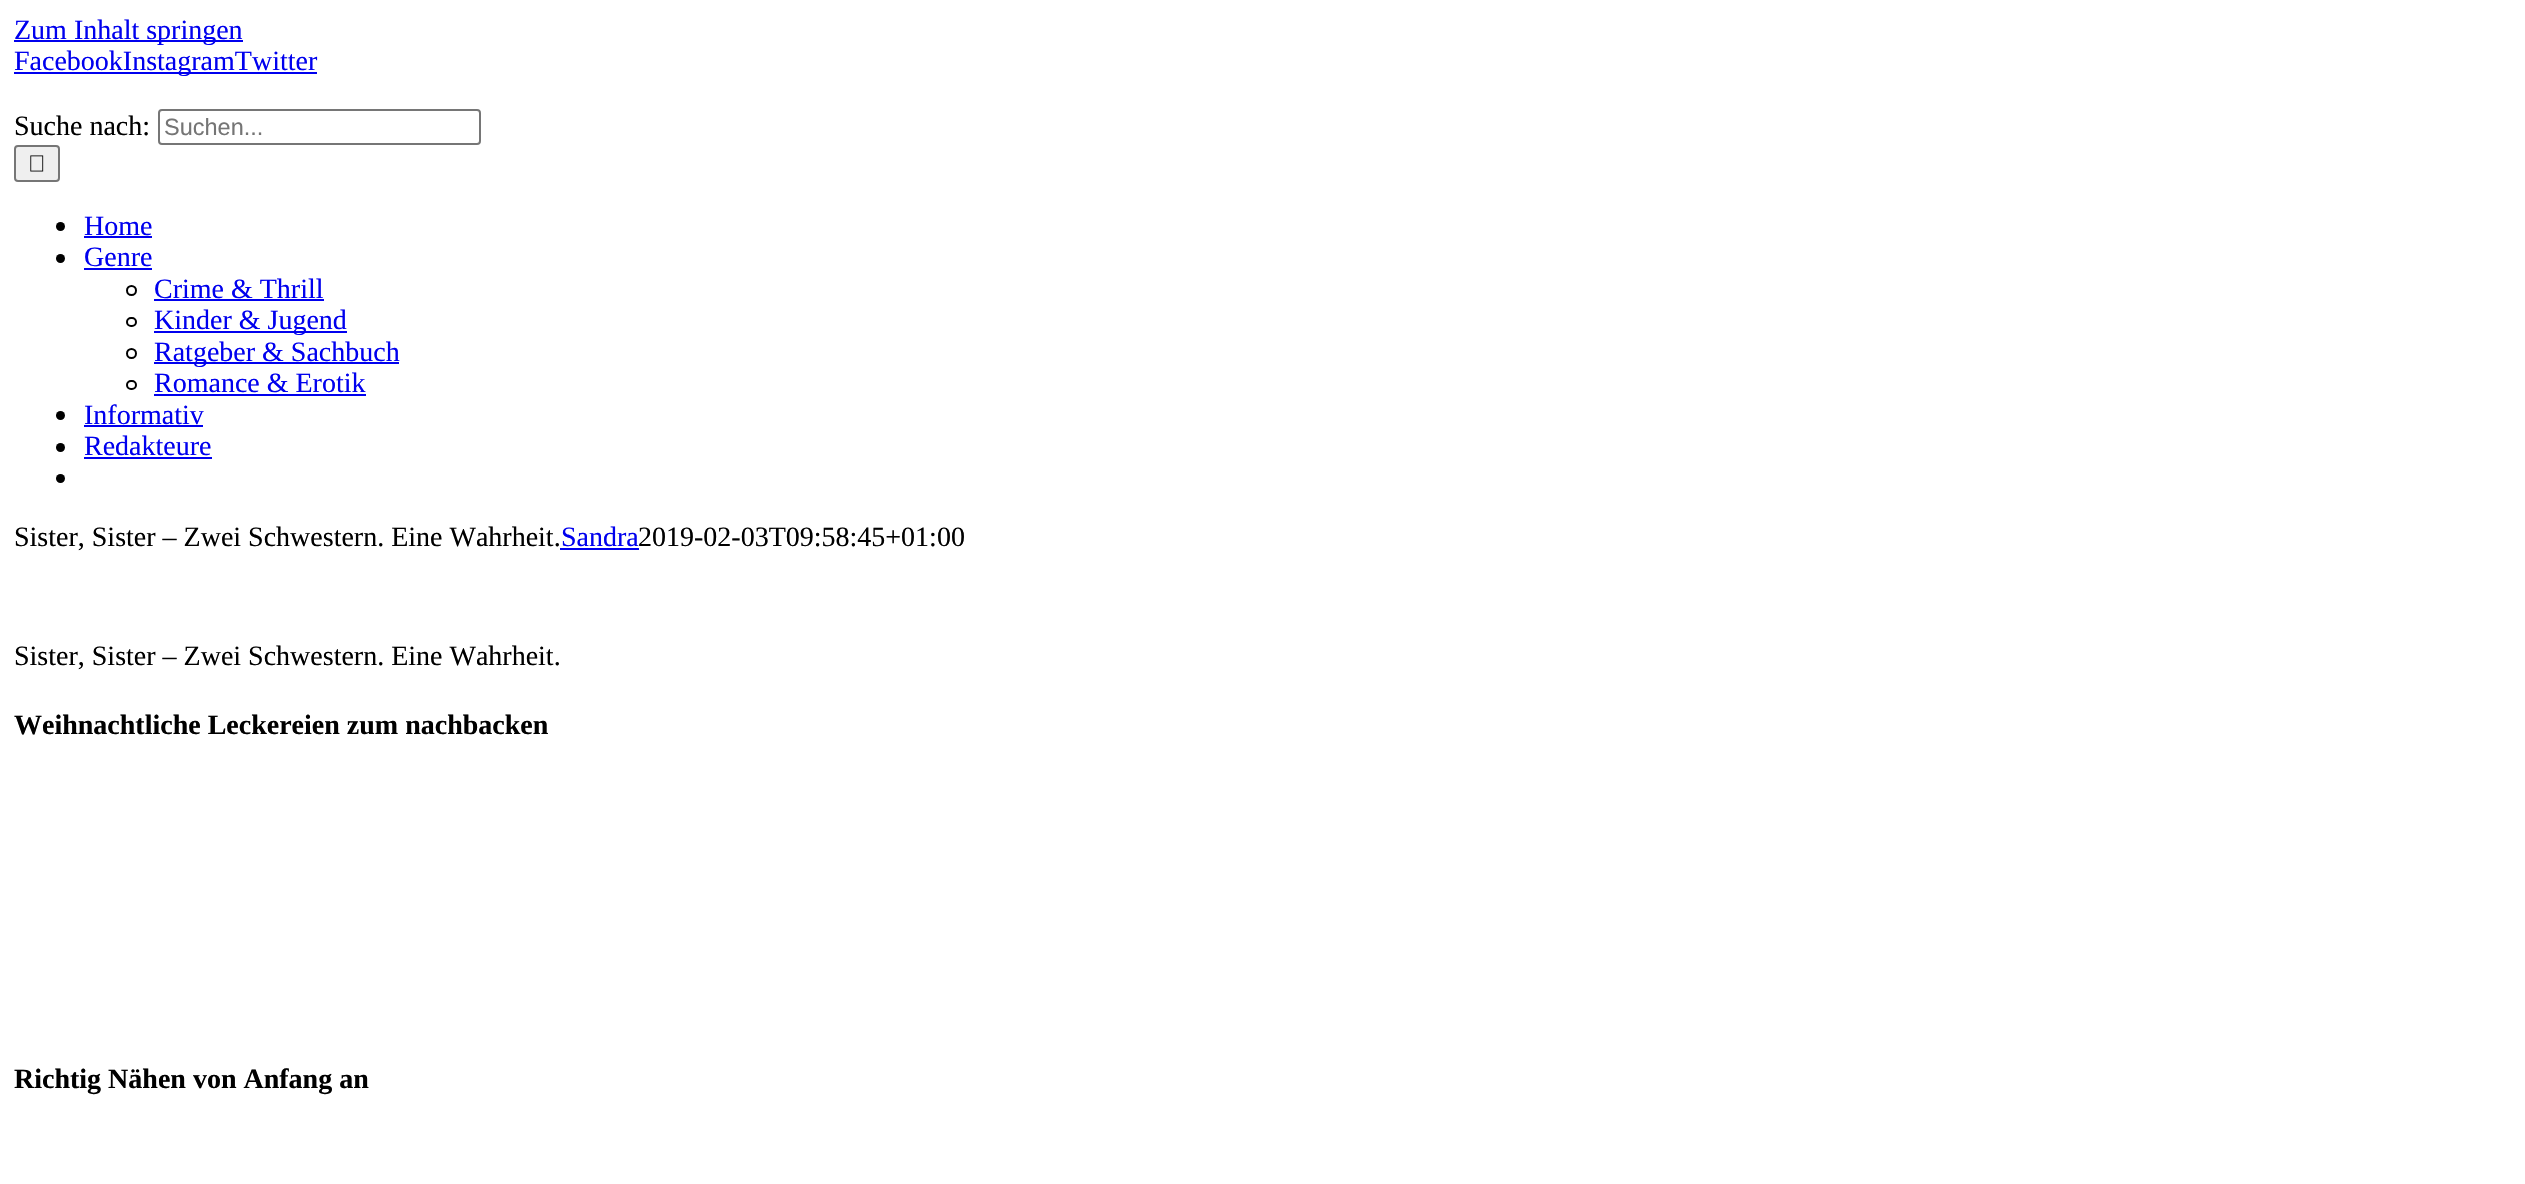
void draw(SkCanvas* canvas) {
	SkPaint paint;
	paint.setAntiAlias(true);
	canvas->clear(0xffffffff);
	paint.setColor(0xff0000ee);
	canvas->drawRect(SkRect::MakeXYWH(14, 40, 229, 2), paint);
	SkFont f1(fontMgr->matchFamilyStyle("Liberation Serif", SkFontStyle::Normal()), 28);
	f1.setSubpixel(true);
	canvas->drawString("Zum Inhalt springen", 14, 39, f1, paint);
	canvas->drawRect(SkRect::MakeXYWH(14, 72, 303, 2), paint);
	canvas->drawString("FacebookInstagramTwitter", 14, 70, f1, paint);
	paint.setColor(0xff000000);
	canvas->drawString("Suche nach:", 14, 135, f1, paint);
	paint.setStroke(true);
	paint.setStrokeWidth(2);
	paint.setColor(0xff767676);
	canvas->drawRoundRect(SkRect::MakeXYWH(159, 110, 321, 34), 3, 3, paint);
	SkFont f2(fontMgr->matchFamilyStyle("Liberation Sans", SkFontStyle::Normal()), 23.5);
	f2.setSubpixel(true);
	paint.setStroke(false);
	paint.setColor(0xff757575);
	canvas->drawString("Suchen...", 164, 135, f2, paint);
	paint.setColor(0xffefefef);
	canvas->drawRoundRect(SkRect::MakeXYWH(15, 146, 44, 35), 3, 3, paint);
	paint.setStroke(true);
	paint.setColor(0xff767676);
	canvas->drawRoundRect(SkRect::MakeXYWH(15, 146, 44, 35), 3, 3, paint);
	canvas->drawImageRect(SkImages::DeferredFromEncodedData(SkData::MakeFromFileName("img1.png")), SkRect::MakeXYWH(30, 155, 14, 17), SkSamplingOptions());
	paint.setStroke(false);
	paint.setColor(0xff000000);
	canvas->drawCircle(60.5, 226.5, 4.5, paint);
	paint.setColor(0xff0000ee);
	canvas->drawString("Home", 84, 235, f1, paint);
	canvas->drawRect(SkRect::MakeXYWH(84, 236, 68, 2), paint);
	paint.setColor(0xff000000);
	canvas->drawCircle(60.5, 258.5, 4.5, paint);
	paint.setColor(0xff0000ee);
	canvas->drawString("Genre", 84, 266, f1, paint);
	canvas->drawRect(SkRect::MakeXYWH(84, 268, 68, 2), paint);
	paint.setStroke(true);
	paint.setColor(0xff000000);
	canvas->drawCircle(131.5, 290.5, 4.5, paint);
	paint.setStroke(false);
	paint.setColor(0xff0000ee);
	canvas->drawString("Crime & Thrill", 154, 298, f1, paint);
	canvas->drawRect(SkRect::MakeXYWH(154, 299, 170, 2), paint);
	paint.setStroke(true);
	paint.setColor(0xff000000);
	canvas->drawRoundRect(SkRect::MakeXYWH(127, 318, 9, 8), 4, 4, paint);
	paint.setStroke(false);
	paint.setColor(0xff0000ee);
	canvas->drawRect(SkRect::MakeXYWH(154, 331, 193, 2), paint);
	canvas->drawString("Kinder & Jugend", 154, 329, f1, paint);
	paint.setStroke(true);
	paint.setColor(0xff000000);
	canvas->drawCircle(131.5, 353.5, 4.5, paint);
	paint.setStroke(false);
	paint.setColor(0xff0000ee);
	canvas->drawRect(SkRect::MakeXYWH(154, 362, 245, 2), paint);
	canvas->drawString("Ratgeber & Sachbuch", 154, 361, f1, paint);
	paint.setStroke(true);
	paint.setColor(0xff000000);
	canvas->drawRoundRect(SkRect::MakeXYWH(127, 381, 9, 8), 4, 4, paint);
	paint.setStroke(false);
	paint.setColor(0xff0000ee);
	canvas->drawString("Romance & Erotik", 154, 392, f1, paint);
	canvas->drawRect(SkRect::MakeXYWH(154, 394, 212, 2), paint);
	paint.setColor(0xff000000);
	canvas->drawCircle(60.5, 415.5, 4.5, paint);
	paint.setColor(0xff0000ee);
	canvas->drawString("Informativ", 84, 424, f1, paint);
	canvas->drawRect(SkRect::MakeXYWH(84, 425, 119, 2), paint);
	paint.setColor(0xff000000);
	canvas->drawCircle(60.5, 447.5, 4.5, paint);
	paint.setColor(0xff0000ee);
	canvas->drawString("Redakteure", 84, 455, f1, paint);
	canvas->drawRect(SkRect::MakeXYWH(84, 457, 128, 2), paint);
	paint.setColor(0xff000000);
	canvas->drawCircle(60.5, 478.5, 4.5, paint);
	canvas->drawString("Sister, Sister – Zwei Schwestern. Eine Wahrheit.", 14, 546, f1, paint);
	paint.setColor(0xff0000ee);
	canvas->drawString("Sandra", 561, 546, f1, paint);
	canvas->drawRect(SkRect::MakeXYWH(560, 548, 79, 2), paint);
	paint.setColor(0xff000000);
	canvas->drawString("2019-02-03T09:58:45+01:00", 638, 546, f1, paint);
	canvas->drawString("Sister, Sister – Zwei Schwestern. Eine Wahrheit.", 14, 665, f1, paint);
	SkFont f3(fontMgr->matchFamilyStyle("Liberation Serif", SkFontStyle::Bold()), 28);
	f3.setSubpixel(true);
	canvas->drawString("Weihnachtliche Leckereien zum nachbacken", 14, 734, f3, paint);
	canvas->drawString("Richtig Nähen von Anfang an", 14, 1088, f3, paint);
}
